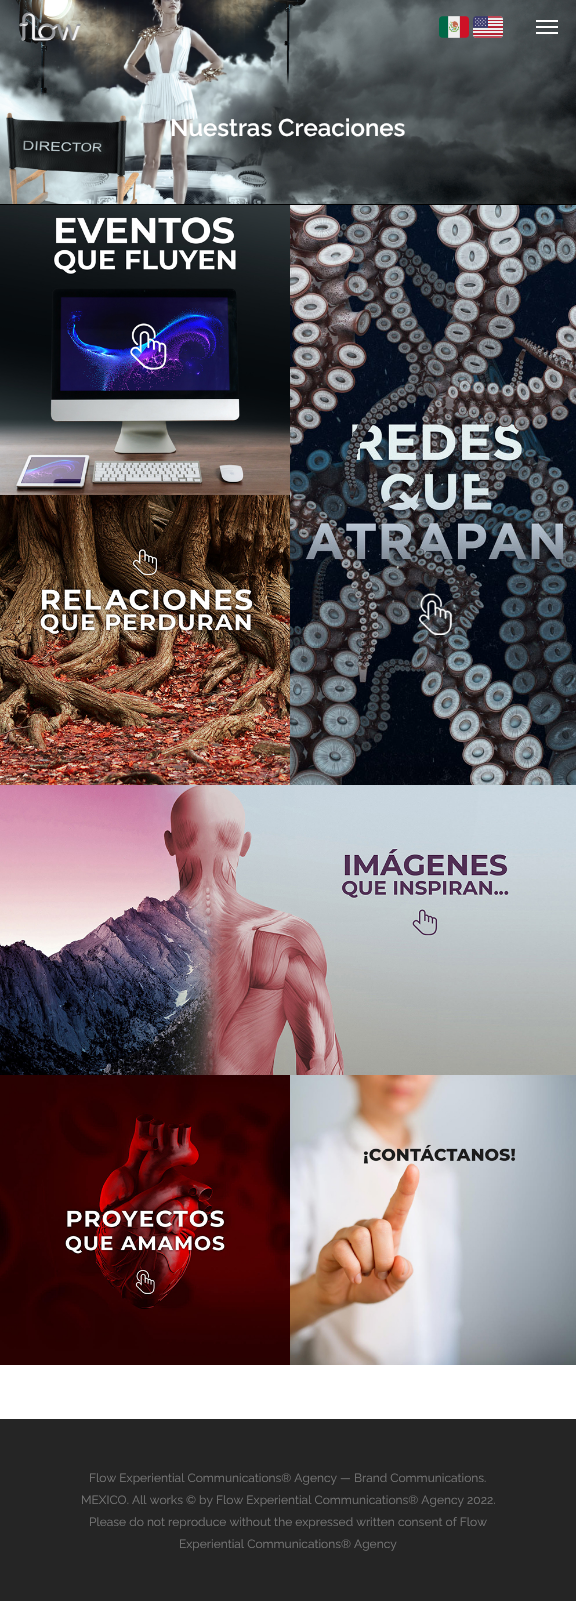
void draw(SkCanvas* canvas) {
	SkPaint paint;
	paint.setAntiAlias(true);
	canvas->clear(0xffffffff);
	canvas->drawImageRect(SkImages::DeferredFromEncodedData(SkData::MakeFromFileName("img4.png")), SkRect::MakeXYWH(0, 0, 576, 204), SkSamplingOptions());
	canvas->drawImageRect(SkImages::DeferredFromEncodedData(SkData::MakeFromFileName("img1.png")), SkRect::MakeXYWH(19, 12, 62, 29), SkSamplingOptions());
	canvas->drawImageRect(SkImages::DeferredFromEncodedData(SkData::MakeFromFileName("img2.png")), SkRect::MakeXYWH(439, 16, 30, 22), SkSamplingOptions());
	canvas->drawImageRect(SkImages::DeferredFromEncodedData(SkData::MakeFromFileName("img3.png")), SkRect::MakeXYWH(473, 16, 30, 22), SkSamplingOptions());
	paint.setColor(0xffffffff);
	canvas->drawRect(SkRect::MakeXYWH(536, 20, 22, 2), paint);
	canvas->drawRect(SkRect::MakeXYWH(536, 32, 22, 2), paint);
	canvas->drawRect(SkRect::MakeXYWH(536, 26, 22, 2), paint);
	SkFont f1(fontMgr->matchFamilyStyle("Raleway", SkFontStyle(600, SkFontStyle::kNormal_Width, SkFontStyle::kUpright_Slant)), 24);
	f1.setSubpixel(true);
	canvas->drawString("Nuestras Creaciones", 170, 136, f1, paint);
	paint.setColor(0xff000000);
	canvas->drawRect(SkRect::MakeXYWH(0, 204, 576, 1), paint);
	canvas->drawImageRect(SkImages::DeferredFromEncodedData(SkData::MakeFromFileName("img5.png")), SkRect::MakeXYWH(0, 205, 290, 290), SkSamplingOptions());
	canvas->drawImageRect(SkImages::DeferredFromEncodedData(SkData::MakeFromFileName("img6.png")), SkRect::MakeXYWH(290, 205, 286, 580), SkSamplingOptions());
	canvas->drawImageRect(SkImages::DeferredFromEncodedData(SkData::MakeFromFileName("img7.png")), SkRect::MakeXYWH(0, 495, 290, 290), SkSamplingOptions());
	canvas->drawImageRect(SkImages::DeferredFromEncodedData(SkData::MakeFromFileName("img8.png")), SkRect::MakeXYWH(0, 785, 576, 290), SkSamplingOptions());
	canvas->drawImageRect(SkImages::DeferredFromEncodedData(SkData::MakeFromFileName("img9.png")), SkRect::MakeXYWH(0, 1075, 290, 290), SkSamplingOptions());
	canvas->drawImageRect(SkImages::DeferredFromEncodedData(SkData::MakeFromFileName("img10.png")), SkRect::MakeXYWH(290, 1075, 286, 290), SkSamplingOptions());
	paint.setColor(0xff252525);
	canvas->drawRect(SkRect::MakeXYWH(0, 1419, 576, 182), paint);
	SkFont f2(fontMgr->matchFamilyStyle("Raleway", SkFontStyle::Normal()), 12);
	f2.setSubpixel(true);
	paint.setColor(0xff777777);
	canvas->drawString("Flow Experiential Communications® Agency — Brand Communications.", 89, 1482, f2, paint);
	canvas->drawString("MEXICO. All works © by Flow Experiential Communications® Agency 2022.", 81, 1504, f2, paint);
	canvas->drawString("Please do not reproduce without the expressed written consent of Flow", 89, 1526, f2, paint);
	canvas->drawString("Experiential Communications® Agency", 179, 1548, f2, paint);
}
